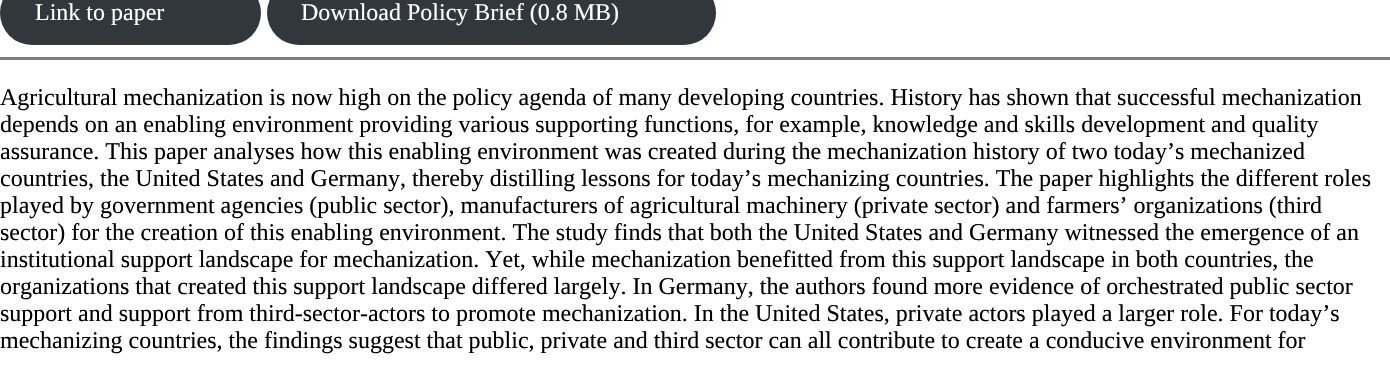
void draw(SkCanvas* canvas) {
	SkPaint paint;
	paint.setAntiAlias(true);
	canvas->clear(0xffffffff);
	paint.setColor(0xff32373c);
	canvas->drawRoundRect(SkRect::MakeXYWH(0, -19, 261, 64), 32, 32, paint);
	SkFont f1(fontMgr->matchFamilyStyle("Liberation Serif", SkFontStyle::Normal()), 24);
	f1.setSubpixel(true);
	paint.setColor(0xffffffff);
	canvas->drawString("Link to paper", 35, 20, f1, paint);
	paint.setColor(0xff32373c);
	canvas->drawRoundRect(SkRect::MakeXYWH(267, -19, 449, 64), 32, 32, paint);
	paint.setColor(0xffffffff);
	canvas->drawString("Download Policy Brief (0.8 MB)", 301, 20, f1, paint);
	paint.setColor(0xff808080);
	canvas->drawRect(SkRect::MakeXYWH(0, 57, 1390, 3), paint);
	paint.setColor(0xff000000);
	canvas->drawString("Agricultural mechanization is now high on the policy agenda of many developing countries. History has shown that successful mechanization", 0, 105, f1, paint);
	canvas->drawString("depends on an enabling environment providing various supporting functions, for example, knowledge and skills development and quality", 0, 132, f1, paint);
	canvas->drawString("assurance. This paper analyses how this enabling environment was created during the mechanization history of two today’s mechanized", 0, 159, f1, paint);
	canvas->drawString("countries, the United States and Germany, thereby distilling lessons for today’s mechanizing countries. The paper highlights the different roles", 0, 186, f1, paint);
	canvas->drawString("played by government agencies (public sector), manufacturers of agricultural machinery (private sector) and farmers’ organizations (third", 0, 213, f1, paint);
	canvas->drawString("sector) for the creation of this enabling environment. The study finds that both the United States and Germany witnessed the emergence of an", 0, 240, f1, paint);
	canvas->drawString("institutional support landscape for mechanization. Yet, while mechanization benefitted from this support landscape in both countries, the", 0, 267, f1, paint);
	canvas->drawString("organizations that created this support landscape differed largely. In Germany, the authors found more evidence of orchestrated public sector", 0, 294, f1, paint);
	canvas->drawString("support and support from third-sector-actors to promote mechanization. In the United States, private actors played a larger role. For today’s", 0, 321, f1, paint);
	canvas->drawString("mechanizing countries, the findings suggest that public, private and third sector can all contribute to create a conducive environment for", 0, 348, f1, paint);
}
